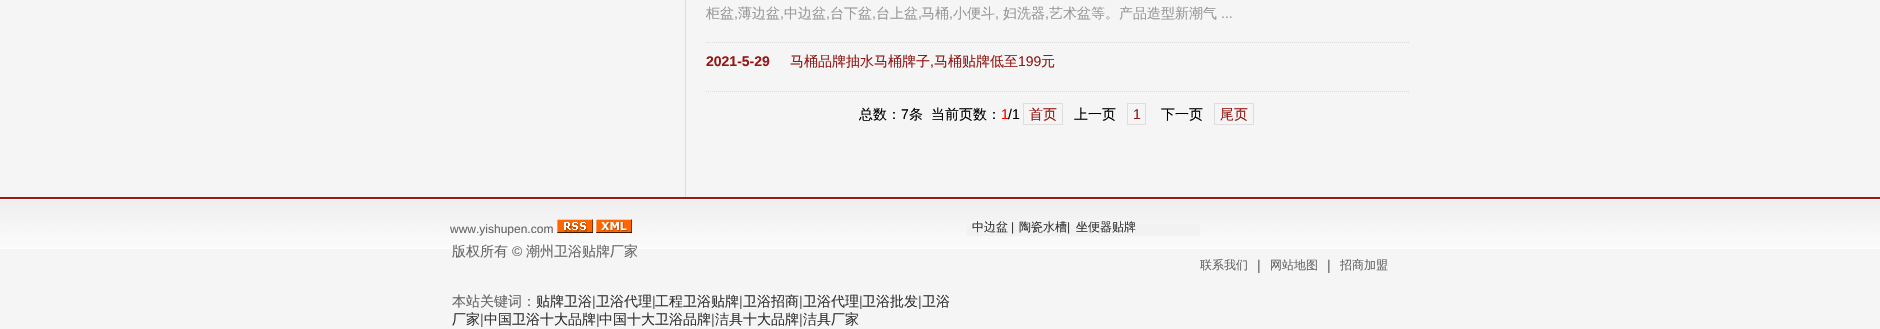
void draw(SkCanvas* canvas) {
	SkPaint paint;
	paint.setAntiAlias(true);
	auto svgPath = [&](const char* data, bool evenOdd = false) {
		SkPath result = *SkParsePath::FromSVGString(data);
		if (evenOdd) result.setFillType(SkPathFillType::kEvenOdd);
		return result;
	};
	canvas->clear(0xfff5f5f5);
	paint.setColor(0xffdddddd);
	canvas->drawRect(SkRect::MakeXYWH(685, 0, 1, 197), paint);
	paint.setStroke(true);
	paint.setStrokeWidth(1);
	paint.setPathEffect(SkDashPathEffect::Make({{1, 1}}, 0));
	canvas->drawPath(svgPath("M706 42.5H1410"), paint);
	paint.setPathEffect(nullptr);
	SkFont f1(fontMgr->matchFamilyStyle("WenQuanYi Zen Hei", SkFontStyle(500, SkFontStyle::kNormal_Width, SkFontStyle::kUpright_Slant)), 14);
	f1.setSubpixel(true);
	paint.setStroke(false);
	paint.setColor(0xff999999);
	canvas->drawString("柜盆", 706, 18, f1, paint);
	SkFont f2(fontMgr->matchFamilyStyle("Liberation Sans", SkFontStyle::Normal()), 14);
	f2.setSubpixel(true);
	canvas->drawString(",", 734, 18, f2, paint);
	canvas->drawString("薄边盆", 738, 18, f1, paint);
	canvas->drawString(",", 780, 18, f2, paint);
	canvas->drawString("中边盆", 784, 18, f1, paint);
	canvas->drawString(",", 826, 18, f2, paint);
	canvas->drawString("台下盆", 830, 18, f1, paint);
	canvas->drawString(",", 872, 18, f2, paint);
	canvas->drawString("台上盆", 876, 18, f1, paint);
	canvas->drawString(",", 918, 18, f2, paint);
	canvas->drawString("马桶", 921, 18, f1, paint);
	canvas->drawString(",", 949, 18, f2, paint);
	canvas->drawString("小便斗", 953, 18, f1, paint);
	canvas->drawString(",", 995, 18, f2, paint);
	canvas->drawString("妇洗器", 1003, 18, f1, paint);
	canvas->drawString(",", 1045, 18, f2, paint);
	canvas->drawString("艺术盆等。产品造型新潮气", 1049, 18, f1, paint);
	canvas->drawString("...", 1221, 18, f2, paint);
	paint.setStroke(true);
	paint.setColor(0xffdddddd);
	paint.setPathEffect(SkDashPathEffect::Make({{1, 1}}, 0));
	canvas->drawPath(svgPath("M706 91.5H1410"), paint);
	paint.setPathEffect(nullptr);
	SkFont f3(fontMgr->matchFamilyStyle("Liberation Sans", SkFontStyle::Bold()), 14);
	f3.setSubpixel(true);
	paint.setStroke(false);
	paint.setColor(0xff931916);
	canvas->drawString("2021-5-29", 706, 66, f3, paint);
	canvas->drawString("马桶品牌抽水马桶牌子", 790, 66, f1, paint);
	canvas->drawString(",", 930, 66, f2, paint);
	canvas->drawString("马桶贴牌低至", 934, 66, f1, paint);
	canvas->drawString("199", 1018, 66, f2, paint);
	canvas->drawString("元", 1041, 66, f1, paint);
	paint.setColor(0xff000000);
	canvas->drawString("总数：", 859, 119, f1, paint);
	canvas->drawString("7", 901, 119, f2, paint);
	canvas->drawString("条", 909, 119, f1, paint);
	canvas->drawString("当前页数：", 931, 119, f1, paint);
	paint.setColor(0xffff0000);
	canvas->drawString("1", 1001, 119, f2, paint);
	paint.setColor(0xff000000);
	canvas->drawString("/1", 1008, 119, f2, paint);
	paint.setStroke(true);
	paint.setColor(0xffdededc);
	canvas->drawRect(SkRect::MakeXYWH(1023.5, 103.5, 39, 21), paint);
	paint.setStroke(false);
	paint.setColor(0xff931916);
	canvas->drawString("首页", 1029, 119, f1, paint);
	paint.setColor(0xff000000);
	canvas->drawString("上一页", 1074, 119, f1, paint);
	paint.setStroke(true);
	paint.setColor(0xffdededc);
	canvas->drawRect(SkRect::MakeXYWH(1127.5, 103.5, 18, 21), paint);
	paint.setStroke(false);
	paint.setColor(0xff931916);
	canvas->drawString("1", 1133, 119, f2, paint);
	paint.setColor(0xff000000);
	canvas->drawString("下一页", 1161, 119, f1, paint);
	paint.setStroke(true);
	paint.setColor(0xffdededc);
	canvas->drawRect(SkRect::MakeXYWH(1214.5, 103.5, 39, 21), paint);
	paint.setStroke(false);
	paint.setColor(0xff931916);
	canvas->drawString("尾页", 1220, 119, f1, paint);
	paint.setColor(0xffffffff);
	canvas->drawRect(SkRect::MakeXYWH(0, 199, 1880, 50), paint);
	canvas->drawImageRect(SkImages::DeferredFromEncodedData(SkData::MakeFromFileName("img1.png")), SkRect::MakeXYWH(0, 200, 1880, 48), SkSamplingOptions());
	paint.setColor(0xffa0171a);
	canvas->drawRect(SkRect::MakeXYWH(0, 197, 1880, 2), paint);
	SkFont f4(fontMgr->matchFamilyStyle("Liberation Sans", SkFontStyle::Normal()), 12);
	f4.setSubpixel(true);
	paint.setColor(0xff666666);
	canvas->drawString("www.yishupen.com", 450, 233, f4, paint);
	canvas->drawImageRect(SkImages::DeferredFromEncodedData(SkData::MakeFromFileName("img2.png")), SkRect::MakeXYWH(557, 219, 36, 14), SkSamplingOptions());
	canvas->drawImageRect(SkImages::DeferredFromEncodedData(SkData::MakeFromFileName("img3.png")), SkRect::MakeXYWH(596, 219, 36, 14), SkSamplingOptions());
	canvas->drawString("版权所有", 452, 256, f1, paint);
	canvas->drawString("©", 512, 256, f2, paint);
	canvas->drawString("潮州卫浴贴牌厂家", 526, 256, f1, paint);
	canvas->drawString("本站关键词：", 452, 306, f1, paint);
	paint.setColor(0xff333333);
	canvas->drawString("贴牌卫浴", 536, 306, f1, paint);
	paint.setColor(0xff666666);
	canvas->drawString("|", 592, 306, f2, paint);
	paint.setColor(0xff333333);
	canvas->drawString("卫浴代理", 596, 306, f1, paint);
	paint.setColor(0xff666666);
	canvas->drawString("|", 652, 306, f2, paint);
	paint.setColor(0xff333333);
	canvas->drawString("工程卫浴贴牌", 655, 306, f1, paint);
	paint.setColor(0xff666666);
	canvas->drawString("|", 739, 306, f2, paint);
	paint.setColor(0xff333333);
	canvas->drawString("卫浴招商", 743, 306, f1, paint);
	paint.setColor(0xff666666);
	canvas->drawString("|", 799, 306, f2, paint);
	paint.setColor(0xff333333);
	canvas->drawString("卫浴代理", 803, 306, f1, paint);
	paint.setColor(0xff666666);
	canvas->drawString("|", 859, 306, f2, paint);
	paint.setColor(0xff333333);
	canvas->drawString("卫浴批发", 862, 306, f1, paint);
	paint.setColor(0xff666666);
	canvas->drawString("|", 918, 306, f2, paint);
	paint.setColor(0xff333333);
	canvas->drawString("卫浴", 922, 306, f1, paint);
	canvas->drawString("厂家", 452, 324, f1, paint);
	paint.setColor(0xff666666);
	canvas->drawString("|", 480, 324, f2, paint);
	paint.setColor(0xff333333);
	canvas->drawString("中国卫浴十大品牌", 484, 324, f1, paint);
	paint.setColor(0xff666666);
	canvas->drawString("|", 596, 324, f2, paint);
	paint.setColor(0xff333333);
	canvas->drawString("中国十大卫浴品牌", 599, 324, f1, paint);
	paint.setColor(0xff666666);
	canvas->drawString("|", 711, 324, f2, paint);
	paint.setColor(0xff333333);
	canvas->drawString("洁具十大品牌", 715, 324, f1, paint);
	paint.setColor(0xff666666);
	canvas->drawString("|", 799, 324, f2, paint);
	paint.setColor(0xff333333);
	canvas->drawString("洁具厂家", 803, 324, f1, paint);
	paint.setColor(0xfff2f2f2);
	canvas->drawRect(SkRect::MakeXYWH(967, 224, 233, 12), paint);
	SkFont f5(fontMgr->matchFamilyStyle("WenQuanYi Zen Hei", SkFontStyle(500, SkFontStyle::kNormal_Width, SkFontStyle::kUpright_Slant)), 12);
	f5.setSubpixel(true);
	paint.setColor(0xff333333);
	canvas->drawString("中边盆", 972, 231, f5, paint);
	canvas->drawString("|", 1011, 231, f4, paint);
	canvas->drawString("陶瓷水槽", 1019, 231, f5, paint);
	canvas->drawString("|", 1067, 231, f4, paint);
	canvas->drawString("坐便器贴牌", 1076, 231, f5, paint);
	paint.setColor(0xff666666);
	canvas->drawString("联系我们", 1200, 269, f5, paint);
	canvas->drawString("|", 1257, 270, f2, paint);
	canvas->drawString("网站地图", 1270, 269, f5, paint);
	canvas->drawString("|", 1327, 270, f2, paint);
	canvas->drawString("招商加盟", 1340, 269, f5, paint);
}
